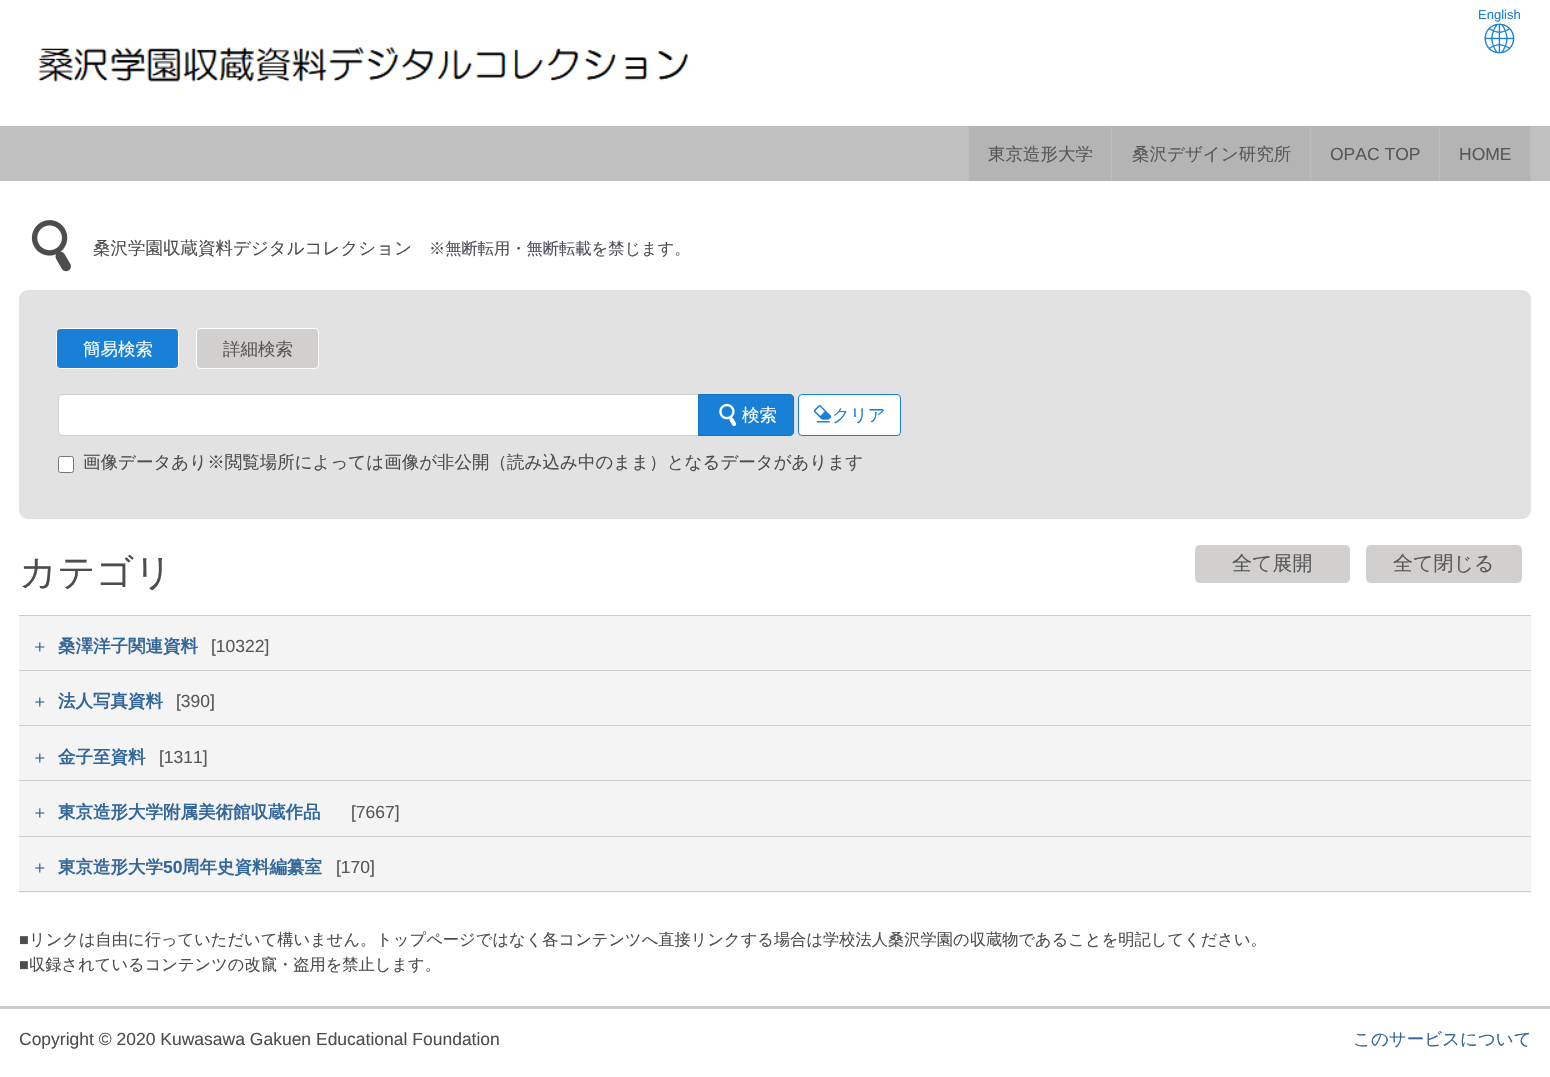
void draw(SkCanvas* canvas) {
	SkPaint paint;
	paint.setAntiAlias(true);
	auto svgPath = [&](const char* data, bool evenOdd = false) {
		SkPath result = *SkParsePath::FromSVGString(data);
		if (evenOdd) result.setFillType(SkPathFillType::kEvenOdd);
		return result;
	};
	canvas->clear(0xffffffff);
	SkFont f1(fontMgr->matchFamilyStyle("Liberation Sans", SkFontStyle::Normal()), 13);
	f1.setSubpixel(true);
	paint.setColor(0xff1880d7);
	canvas->drawString("English", 1478, 19, f1, paint);
	canvas->drawImageRect(SkImages::DeferredFromEncodedData(SkData::MakeFromFileName("img1.png")), SkRect::MakeXYWH(1484, 23, 31, 31), SkSamplingOptions());
	canvas->drawImageRect(SkImages::DeferredFromEncodedData(SkData::MakeFromFileName("img2.png")), SkRect::MakeXYWH(38, 47, 651, 35), SkSamplingOptions());
	paint.setColor(0xffc0c0c0);
	canvas->drawRect(SkRect::MakeXYWH(0, 126, 1550, 55), paint);
	paint.setColor(0xffb4b4b4);
	canvas->drawRect(SkRect::MakeXYWH(969, 126, 561, 55), paint);
	paint.setColor(0xffbdbdbd);
	canvas->drawRect(SkRect::MakeXYWH(968, 126, 1, 55), paint);
	canvas->drawRect(SkRect::MakeXYWH(1111, 126, 1, 55), paint);
	SkFont f2(fontMgr->matchFamilyStyle("WenQuanYi Zen Hei", SkFontStyle(500, SkFontStyle::kNormal_Width, SkFontStyle::kUpright_Slant)), 17.5);
	f2.setSubpixel(true);
	paint.setColor(0xff575757);
	canvas->drawString("東京造形大学", 988, 160, f2, paint);
	paint.setColor(0xffbdbdbd);
	canvas->drawRect(SkRect::MakeXYWH(1310, 126, 1, 55), paint);
	paint.setColor(0xff575757);
	canvas->drawString("桑沢デザイン研究所", 1132, 160, f2, paint);
	paint.setColor(0xffbdbdbd);
	canvas->drawRect(SkRect::MakeXYWH(1439, 126, 1, 55), paint);
	SkFont f3(fontMgr->matchFamilyStyle("Liberation Sans", SkFontStyle::Normal()), 17.5);
	f3.setSubpixel(true);
	paint.setColor(0xff575757);
	canvas->drawString("OPAC TOP", 1330, 160, f3, paint);
	paint.setColor(0xffbdbdbd);
	canvas->drawRect(SkRect::MakeXYWH(1530, 126, 1, 55), paint);
	paint.setColor(0xff575757);
	canvas->drawString("HOME", 1459, 160, f3, paint);
	canvas->drawImageRect(SkImages::DeferredFromEncodedData(SkData::MakeFromFileName("img3.png")), SkRect::MakeXYWH(31, 220, 40, 52), SkSamplingOptions());
	paint.setColor(0xff4d4d4d);
	canvas->drawString("桑沢学園収蔵資料デジタルコレクション", 93, 254, f2, paint);
	SkFont f4(fontMgr->matchFamilyStyle("WenQuanYi Zen Hei", SkFontStyle(500, SkFontStyle::kNormal_Width, SkFontStyle::kUpright_Slant)), 16.25);
	f4.setSubpixel(true);
	paint.setColor(0xff4e4f5a);
	canvas->drawString("※無断転用・無断転載を禁じます。", 429, 254, f4, paint);
	paint.setColor(0xffe2e2e2);
	canvas->drawRoundRect(SkRect::MakeXYWH(19, 290, 1512, 229), 9, 9, paint);
	paint.setColor(0xff1880d7);
	canvas->drawRoundRect(SkRect::MakeXYWH(56.5, 328.5, 122, 40), 3.5, 3.5, paint);
	paint.setStroke(true);
	paint.setStrokeWidth(1);
	paint.setColor(0xffffffff);
	canvas->drawRoundRect(SkRect::MakeXYWH(56.5, 328.5, 122, 40), 3.5, 3.5, paint);
	paint.setStroke(false);
	canvas->drawString("簡易検索", 83, 355, f2, paint);
	paint.setColor(0xffd1d0ce);
	canvas->drawRoundRect(SkRect::MakeXYWH(196.5, 328.5, 122, 40), 3.5, 3.5, paint);
	paint.setStroke(true);
	paint.setColor(0xffffffff);
	canvas->drawRoundRect(SkRect::MakeXYWH(196.5, 328.5, 122, 40), 3.5, 3.5, paint);
	paint.setStroke(false);
	paint.setColor(0xff575757);
	canvas->drawString("詳細検索", 223, 355, f2, paint);
	paint.setColor(0xffffffff);
	canvas->drawRoundRect(SkRect::MakeXYWH(58.5, 394.5, 646, 41), 3.5, 3.5, paint);
	paint.setStroke(true);
	paint.setColor(0xffcccccc);
	canvas->drawRoundRect(SkRect::MakeXYWH(58.5, 394.5, 646, 41), 3.5, 3.5, paint);
	paint.setStroke(false);
	paint.setColor(0xff1980d8);
	canvas->drawPath(svgPath("M698.5 394.5H790C792 394.5 793.5 396 793.5 398V432C793.5 434 792 435.5 790 435.5H698.5Z"), paint);
	paint.setStroke(true);
	paint.setColor(0xff1672c1);
	canvas->drawPath(svgPath("M698.5 394.5H790C792 394.5 793.5 396 793.5 398V432C793.5 434 792 435.5 790 435.5H698.5Z"), paint);
	canvas->drawImageRect(SkImages::DeferredFromEncodedData(SkData::MakeFromFileName("img4.png")), SkRect::MakeXYWH(719, 403, 18, 23), SkSamplingOptions());
	paint.setStroke(false);
	paint.setColor(0xffffffff);
	canvas->drawString("検索", 742, 421, f2, paint);
	canvas->drawRoundRect(SkRect::MakeXYWH(798.5, 394.5, 102, 41), 3.5, 3.5, paint);
	paint.setStroke(true);
	paint.setColor(0xff1980d8);
	canvas->drawRoundRect(SkRect::MakeXYWH(798.5, 394.5, 102, 41), 3.5, 3.5, paint);
	canvas->drawImageRect(SkImages::DeferredFromEncodedData(SkData::MakeFromFileName("img5.png")), SkRect::MakeXYWH(813, 405, 19, 18), SkSamplingOptions());
	paint.setStroke(false);
	paint.setColor(0xff1880d7);
	canvas->drawString("クリア", 832, 421, f2, paint);
	paint.setColor(0xffffffff);
	canvas->drawRoundRect(SkRect::MakeXYWH(58.5, 456.5, 15, 16), 2, 2, paint);
	paint.setStroke(true);
	paint.setColor(0xff767676);
	canvas->drawRoundRect(SkRect::MakeXYWH(58.5, 456.5, 15, 16), 2, 2, paint);
	paint.setStroke(false);
	paint.setColor(0xff4d4d4d);
	canvas->drawString("画像データあり※閲覧場所によっては画像が非公開（読み込み中のまま）となるデータがあります", 83, 468, f2, paint);
	SkFont f5(fontMgr->matchFamilyStyle("WenQuanYi Zen Hei", SkFontStyle(500, SkFontStyle::kNormal_Width, SkFontStyle::kUpright_Slant)), 37.5);
	f5.setSubpixel(true);
	canvas->drawString("カテゴリ", 19, 585, f5, paint);
	paint.setColor(0xffd1d0ce);
	canvas->drawRoundRect(SkRect::MakeXYWH(1194.5, 544.5, 156, 39), 5.5, 5.5, paint);
	paint.setStroke(true);
	paint.setColor(0xffffffff);
	canvas->drawRoundRect(SkRect::MakeXYWH(1194.5, 544.5, 156, 39), 5.5, 5.5, paint);
	SkFont f6(fontMgr->matchFamilyStyle("WenQuanYi Zen Hei", SkFontStyle(500, SkFontStyle::kNormal_Width, SkFontStyle::kUpright_Slant)), 20);
	f6.setSubpixel(true);
	paint.setStroke(false);
	paint.setColor(0xff575757);
	canvas->drawString("全て展開", 1232, 570, f6, paint);
	paint.setColor(0xffd1d0ce);
	canvas->drawRoundRect(SkRect::MakeXYWH(1365.5, 544.5, 157, 39), 5.5, 5.5, paint);
	paint.setStroke(true);
	paint.setColor(0xffffffff);
	canvas->drawRoundRect(SkRect::MakeXYWH(1365.5, 544.5, 157, 39), 5.5, 5.5, paint);
	paint.setStroke(false);
	paint.setColor(0xff575757);
	canvas->drawString("全て閉じる", 1393, 570, f6, paint);
	paint.setColor(0xfff4f4f4);
	canvas->drawRect(SkRect::MakeXYWH(19, 616, 1512, 277), paint);
	paint.setColor(0xffcccccc);
	canvas->drawRect(SkRect::MakeXYWH(19, 891, 1512, 1), paint);
	canvas->drawRect(SkRect::MakeXYWH(19, 615, 1512, 1), paint);
	paint.setColor(0xff336699);
	canvas->drawString("＋", 31, 652, f2, paint);
	SkFont f7(fontMgr->matchFamilyStyle("WenQuanYi Zen Hei", SkFontStyle::Bold()), 17.5);
	f7.setSubpixel(true);
	canvas->drawString("桑澤洋子関連資料", 58, 652, f7, paint);
	paint.setColor(0xff575757);
	canvas->drawString("[10322]", 211, 652, f3, paint);
	paint.setColor(0xffcccccc);
	canvas->drawRect(SkRect::MakeXYWH(19, 670, 1512, 1), paint);
	paint.setColor(0xff336699);
	canvas->drawString("＋", 31, 707, f2, paint);
	canvas->drawString("法人写真資料", 58, 707, f7, paint);
	paint.setColor(0xff575757);
	canvas->drawString("[390]", 176, 707, f3, paint);
	paint.setColor(0xffcccccc);
	canvas->drawRect(SkRect::MakeXYWH(19, 725, 1512, 1), paint);
	paint.setColor(0xff336699);
	canvas->drawString("＋", 31, 763, f2, paint);
	canvas->drawString("金子至資料", 58, 763, f7, paint);
	paint.setColor(0xff575757);
	canvas->drawString("[1311]", 159, 763, f3, paint);
	paint.setColor(0xffcccccc);
	canvas->drawRect(SkRect::MakeXYWH(19, 780, 1512, 1), paint);
	paint.setColor(0xff336699);
	canvas->drawString("＋", 31, 818, f2, paint);
	canvas->drawString("東京造形大学附属美術館収蔵作品", 58, 818, f7, paint);
	paint.setColor(0xff575757);
	canvas->drawString("[7667]", 351, 818, f3, paint);
	paint.setColor(0xffcccccc);
	canvas->drawRect(SkRect::MakeXYWH(19, 836, 1512, 1), paint);
	paint.setColor(0xff336699);
	canvas->drawString("＋", 31, 873, f2, paint);
	canvas->drawString("東京造形大学", 58, 873, f7, paint);
	SkFont f8(fontMgr->matchFamilyStyle("Liberation Sans", SkFontStyle::Bold()), 17.5);
	f8.setSubpixel(true);
	canvas->drawString("50", 163, 873, f8, paint);
	canvas->drawString("周年史資料編纂室", 182, 873, f7, paint);
	paint.setColor(0xff575757);
	canvas->drawString("[170]", 336, 873, f3, paint);
	SkFont f9(fontMgr->matchFamilyStyle("Liberation Sans", SkFontStyle::Normal()), 16.25);
	f9.setSubpixel(true);
	paint.setColor(0xff4d4d4d);
	canvas->drawString("■", 19, 945, f9, paint);
	canvas->drawString("リンクは自由に行っていただいて構いません。トップページではなく各コンテンツへ直接リンクする場合は学校法人桑沢学園の収蔵物であることを明記してください。", 29, 945, f4, paint);
	canvas->drawString("■", 19, 970, f9, paint);
	canvas->drawString("収録されているコンテンツの改竄・盗用を禁止します。", 29, 970, f4, paint);
	paint.setColor(0xffcccccc);
	canvas->drawRect(SkRect::MakeXYWH(0, 1006, 1550, 3), paint);
	paint.setColor(0xff4d4d4d);
	canvas->drawString("Copyright © 2020 Kuwasawa Gakuen Educational Foundation", 19, 1045, f3, paint);
	paint.setColor(0xff336699);
	canvas->drawString("このサービスについて", 1353, 1045, f2, paint);
}
